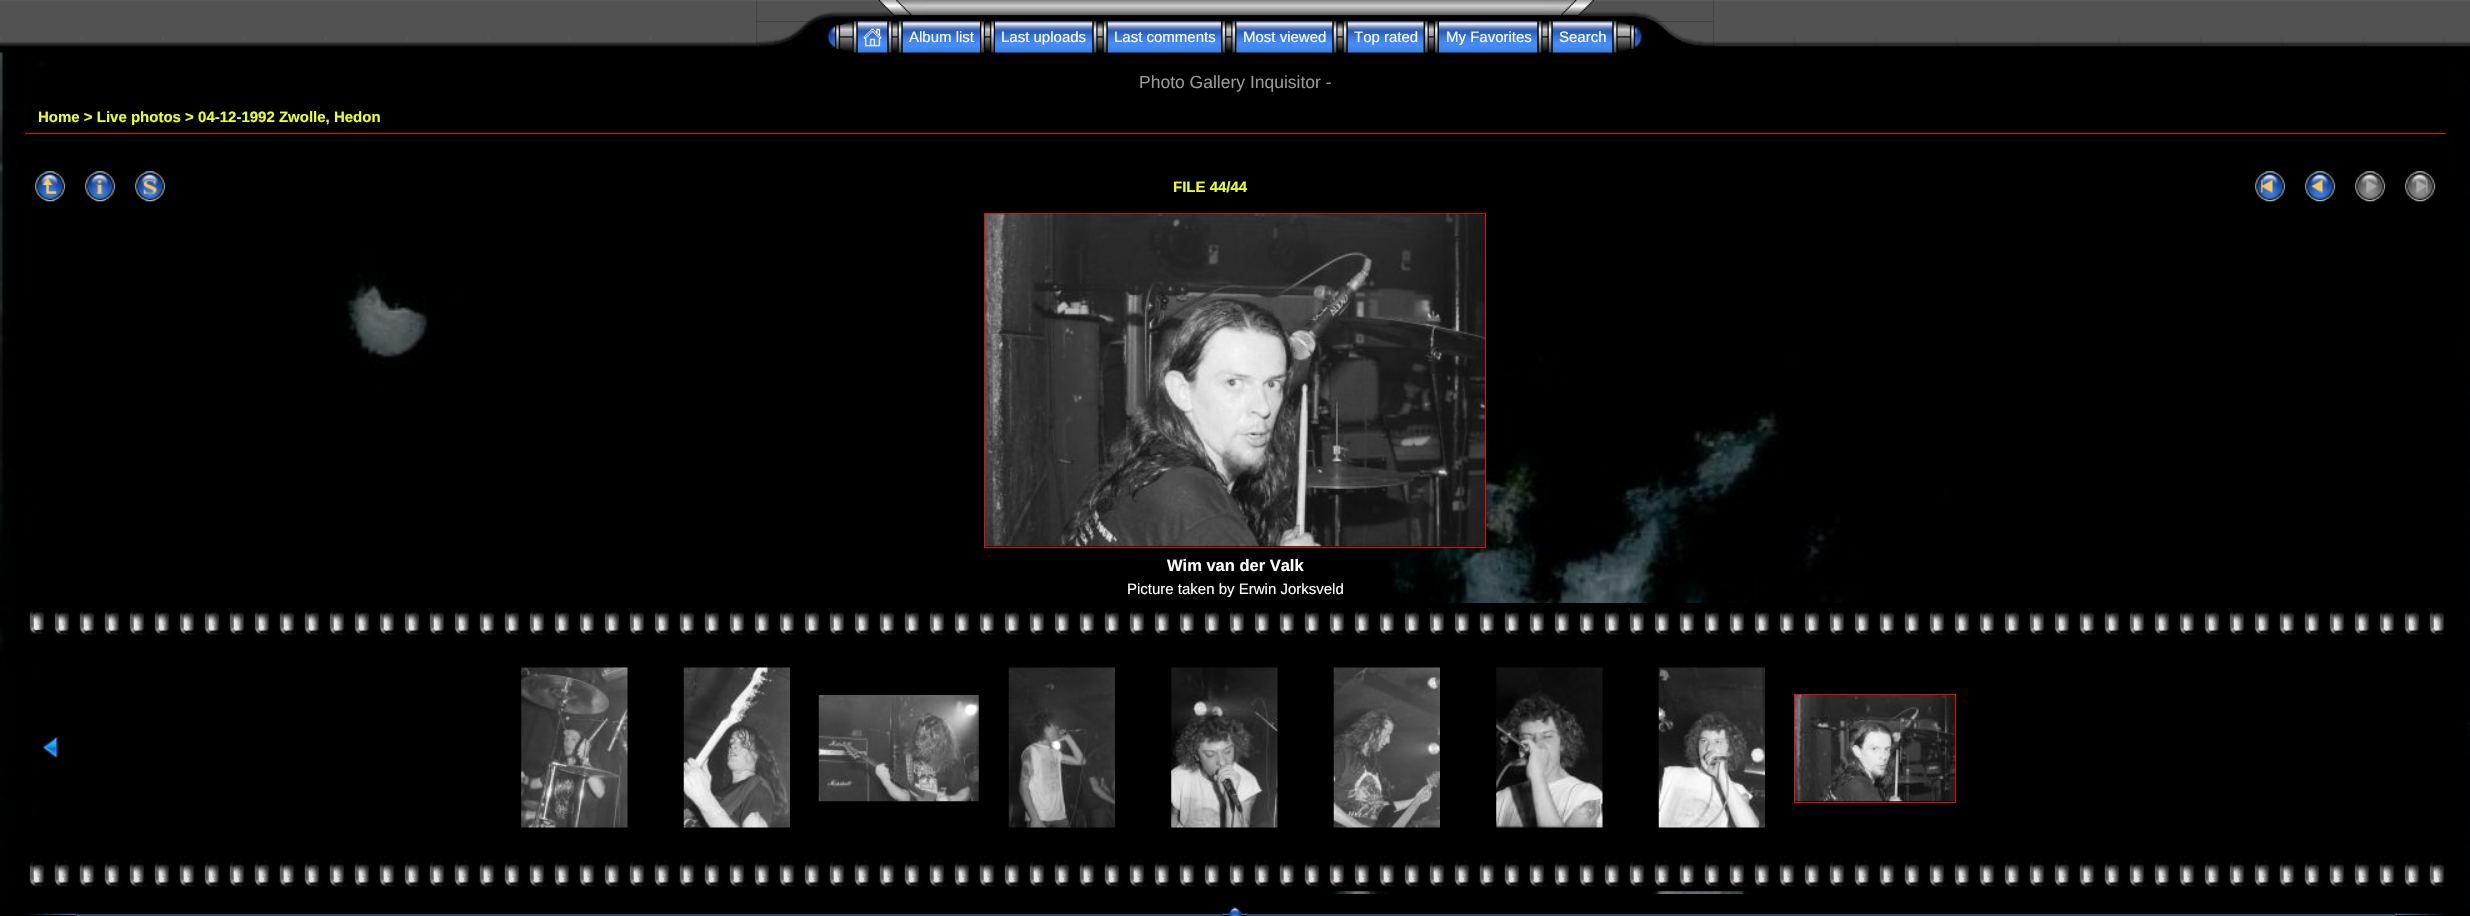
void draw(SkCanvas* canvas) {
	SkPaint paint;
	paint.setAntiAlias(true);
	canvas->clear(0xffffffff);
	canvas->drawImageRect(SkImages::DeferredFromEncodedData(SkData::MakeFromFileName("img1.png")), SkRect::MakeXYWH(0, 0, 2470, 916), SkSamplingOptions());
	canvas->drawImageRect(SkImages::DeferredFromEncodedData(SkData::MakeFromFileName("img2.png")), SkRect::MakeXYWH(0, 0, 757, 53), SkSamplingOptions());
	canvas->drawImageRect(SkImages::DeferredFromEncodedData(SkData::MakeFromFileName("img3.png")), SkRect::MakeXYWH(756, 0, 169, 22), SkSamplingOptions());
	canvas->drawImageRect(SkImages::DeferredFromEncodedData(SkData::MakeFromFileName("img4.png")), SkRect::MakeXYWH(925, 0, 620, 16), SkSamplingOptions());
	canvas->drawImageRect(SkImages::DeferredFromEncodedData(SkData::MakeFromFileName("img5.png")), SkRect::MakeXYWH(1545, 0, 169, 22), SkSamplingOptions());
	canvas->drawImageRect(SkImages::DeferredFromEncodedData(SkData::MakeFromFileName("img6.png")), SkRect::MakeXYWH(756, 21, 59, 26), SkSamplingOptions());
	canvas->drawImageRect(SkImages::DeferredFromEncodedData(SkData::MakeFromFileName("img8.png")), SkRect::MakeXYWH(857, 21, 31, 32), SkSamplingOptions());
	canvas->drawImageRect(SkImages::DeferredFromEncodedData(SkData::MakeFromFileName("img7.png")), SkRect::MakeXYWH(827, 21, 31, 32), SkSamplingOptions());
	canvas->drawImageRect(SkImages::DeferredFromEncodedData(SkData::MakeFromFileName("img9.png")), SkRect::MakeXYWH(863, 28, 19, 19), SkSamplingOptions());
	canvas->drawImageRect(SkImages::DeferredFromEncodedData(SkData::MakeFromFileName("img11.png")), SkRect::MakeXYWH(902, 21, 78, 32), SkSamplingOptions());
	canvas->drawImageRect(SkImages::DeferredFromEncodedData(SkData::MakeFromFileName("img10.png")), SkRect::MakeXYWH(887, 21, 16, 32), SkSamplingOptions());
	SkFont f1(fontMgr->matchFamilyStyle("Liberation Sans", SkFontStyle::Normal()), 15);
	f1.setSubpixel(true);
	paint.setColor(0xffffffff);
	canvas->drawString("Album list", 909, 42, f1, paint);
	canvas->drawImageRect(SkImages::DeferredFromEncodedData(SkData::MakeFromFileName("img12.png")), SkRect::MakeXYWH(981, 21, 13, 32), SkSamplingOptions());
	canvas->drawImageRect(SkImages::DeferredFromEncodedData(SkData::MakeFromFileName("img13.png")), SkRect::MakeXYWH(995, 21, 98, 32), SkSamplingOptions());
	canvas->drawString("Last uploads", 1001, 42, f1, paint);
	canvas->drawImageRect(SkImages::DeferredFromEncodedData(SkData::MakeFromFileName("img15.png")), SkRect::MakeXYWH(1107, 21, 115, 32), SkSamplingOptions());
	canvas->drawImageRect(SkImages::DeferredFromEncodedData(SkData::MakeFromFileName("img14.png")), SkRect::MakeXYWH(1092, 21, 16, 32), SkSamplingOptions());
	canvas->drawString("Last comments", 1114, 42, f1, paint);
	canvas->drawImageRect(SkImages::DeferredFromEncodedData(SkData::MakeFromFileName("img17.png")), SkRect::MakeXYWH(1236, 21, 97, 32), SkSamplingOptions());
	canvas->drawImageRect(SkImages::DeferredFromEncodedData(SkData::MakeFromFileName("img16.png")), SkRect::MakeXYWH(1221, 21, 16, 32), SkSamplingOptions());
	canvas->drawString("Most viewed", 1243, 42, f1, paint);
	canvas->drawImageRect(SkImages::DeferredFromEncodedData(SkData::MakeFromFileName("img18.png")), SkRect::MakeXYWH(1347, 21, 77, 32), SkSamplingOptions());
	canvas->drawImageRect(SkImages::DeferredFromEncodedData(SkData::MakeFromFileName("img14.png")), SkRect::MakeXYWH(1332, 21, 16, 32), SkSamplingOptions());
	canvas->drawString("Top rated", 1354, 42, f1, paint);
	canvas->drawImageRect(SkImages::DeferredFromEncodedData(SkData::MakeFromFileName("img20.png")), SkRect::MakeXYWH(1438, 21, 100, 32), SkSamplingOptions());
	canvas->drawImageRect(SkImages::DeferredFromEncodedData(SkData::MakeFromFileName("img19.png")), SkRect::MakeXYWH(1423, 21, 16, 32), SkSamplingOptions());
	canvas->drawString("My Favorites", 1446, 42, f1, paint);
	canvas->drawImageRect(SkImages::DeferredFromEncodedData(SkData::MakeFromFileName("img21.png")), SkRect::MakeXYWH(1552, 21, 61, 32), SkSamplingOptions());
	canvas->drawImageRect(SkImages::DeferredFromEncodedData(SkData::MakeFromFileName("img10.png")), SkRect::MakeXYWH(1537, 21, 16, 32), SkSamplingOptions());
	canvas->drawString("Search", 1559, 42, f1, paint);
	canvas->drawImageRect(SkImages::DeferredFromEncodedData(SkData::MakeFromFileName("img22.png")), SkRect::MakeXYWH(1612, 21, 33, 32), SkSamplingOptions());
	canvas->drawImageRect(SkImages::DeferredFromEncodedData(SkData::MakeFromFileName("img24.png")), SkRect::MakeXYWH(1713, 0, 757, 47), SkSamplingOptions());
	canvas->drawImageRect(SkImages::DeferredFromEncodedData(SkData::MakeFromFileName("img23.png")), SkRect::MakeXYWH(1653, 21, 61, 26), SkSamplingOptions());
	SkFont f2(fontMgr->matchFamilyStyle("Liberation Sans", SkFontStyle::Normal()), 17.5);
	f2.setSubpixel(true);
	paint.setColor(0xff999999);
	canvas->drawString("Photo Gallery Inquisitor -", 1139, 88, f2, paint);
	paint.setColor(0xffff0000);
	canvas->drawRect(SkRect::MakeXYWH(25, 133, 2421, 1), paint);
	SkFont f3(fontMgr->matchFamilyStyle("Liberation Sans", SkFontStyle::Bold()), 15);
	f3.setSubpixel(true);
	paint.setColor(0xffedff21);
	canvas->drawString("Home > Live photos > 04-12-1992 Zwolle, Hedon", 38, 122, f3, paint);
	canvas->drawImageRect(SkImages::DeferredFromEncodedData(SkData::MakeFromFileName("img25.png")), SkRect::MakeXYWH(34, 171, 32, 31), SkSamplingOptions());
	canvas->drawImageRect(SkImages::DeferredFromEncodedData(SkData::MakeFromFileName("img26.png")), SkRect::MakeXYWH(84, 171, 32, 31), SkSamplingOptions());
	canvas->drawImageRect(SkImages::DeferredFromEncodedData(SkData::MakeFromFileName("img27.png")), SkRect::MakeXYWH(134, 171, 32, 31), SkSamplingOptions());
	canvas->drawString("FILE 44/44", 1173, 192, f3, paint);
	canvas->drawImageRect(SkImages::DeferredFromEncodedData(SkData::MakeFromFileName("img28.png")), SkRect::MakeXYWH(2254, 171, 32, 31), SkSamplingOptions());
	canvas->drawImageRect(SkImages::DeferredFromEncodedData(SkData::MakeFromFileName("img29.png")), SkRect::MakeXYWH(2304, 171, 32, 31), SkSamplingOptions());
	canvas->drawImageRect(SkImages::DeferredFromEncodedData(SkData::MakeFromFileName("img30.png")), SkRect::MakeXYWH(2354, 171, 32, 31), SkSamplingOptions());
	canvas->drawImageRect(SkImages::DeferredFromEncodedData(SkData::MakeFromFileName("img31.png")), SkRect::MakeXYWH(2404, 171, 32, 31), SkSamplingOptions());
	paint.setStroke(true);
	paint.setStrokeWidth(1);
	paint.setColor(0xffff0000);
	canvas->drawRect(SkRect::MakeXYWH(984.5, 213.5, 501, 334), paint);
	canvas->drawImageRect(SkImages::DeferredFromEncodedData(SkData::MakeFromFileName("img32.png")), SkRect::MakeXYWH(985, 213, 500, 334), SkSamplingOptions());
	SkFont f4(fontMgr->matchFamilyStyle("Liberation Sans", SkFontStyle::Bold()), 16.5);
	f4.setSubpixel(true);
	paint.setStroke(false);
	paint.setColor(0xffffffff);
	canvas->drawString("Wim van der Valk", 1167, 571, f4, paint);
	canvas->drawString("Picture taken by Erwin Jorksveld", 1127, 594, f1, paint);
	paint.setColor(0xff000000);
	canvas->drawRect(SkRect::MakeXYWH(1401, 603, 442, 1), paint);
	canvas->drawRect(SkRect::MakeXYWH(1370, 604, 473, 35), paint);
	canvas->drawImageRect(SkImages::DeferredFromEncodedData(SkData::MakeFromFileName("img33.png")), SkRect::MakeXYWH(29, 604, 2416, 31), SkSamplingOptions());
	canvas->drawImageRect(SkImages::DeferredFromEncodedData(SkData::MakeFromFileName("img34.png")), SkRect::MakeXYWH(30, 611, 14, 24), SkSamplingOptions());
	canvas->drawRect(SkRect::MakeXYWH(1318, 639, 481, 217), paint);
	canvas->drawImageRect(SkImages::DeferredFromEncodedData(SkData::MakeFromFileName("img35.png")), SkRect::MakeXYWH(42, 737, 16, 21), SkSamplingOptions());
	canvas->drawImageRect(SkImages::DeferredFromEncodedData(SkData::MakeFromFileName("img36.png")), SkRect::MakeXYWH(521, 667, 107, 161), SkSamplingOptions());
	canvas->drawImageRect(SkImages::DeferredFromEncodedData(SkData::MakeFromFileName("img37.png")), SkRect::MakeXYWH(683, 667, 107, 161), SkSamplingOptions());
	canvas->drawImageRect(SkImages::DeferredFromEncodedData(SkData::MakeFromFileName("img38.png")), SkRect::MakeXYWH(818, 695, 161, 107), SkSamplingOptions());
	canvas->drawImageRect(SkImages::DeferredFromEncodedData(SkData::MakeFromFileName("img39.png")), SkRect::MakeXYWH(1008, 667, 107, 161), SkSamplingOptions());
	canvas->drawImageRect(SkImages::DeferredFromEncodedData(SkData::MakeFromFileName("img40.png")), SkRect::MakeXYWH(1171, 667, 107, 161), SkSamplingOptions());
	canvas->drawImageRect(SkImages::DeferredFromEncodedData(SkData::MakeFromFileName("img41.png")), SkRect::MakeXYWH(1333, 667, 107, 161), SkSamplingOptions());
	canvas->drawImageRect(SkImages::DeferredFromEncodedData(SkData::MakeFromFileName("img42.png")), SkRect::MakeXYWH(1496, 667, 107, 161), SkSamplingOptions());
	canvas->drawImageRect(SkImages::DeferredFromEncodedData(SkData::MakeFromFileName("img43.png")), SkRect::MakeXYWH(1658, 667, 107, 161), SkSamplingOptions());
	paint.setStroke(true);
	paint.setColor(0xffff0000);
	canvas->drawRect(SkRect::MakeXYWH(1794.5, 694.5, 161, 108), paint);
	canvas->drawImageRect(SkImages::DeferredFromEncodedData(SkData::MakeFromFileName("img44.png")), SkRect::MakeXYWH(1795, 695, 160, 107), SkSamplingOptions());
	paint.setStroke(false);
	paint.setColor(0xff000000);
	canvas->drawRect(SkRect::MakeXYWH(1317, 856, 434, 35), paint);
	canvas->drawImageRect(SkImages::DeferredFromEncodedData(SkData::MakeFromFileName("img45.png")), SkRect::MakeXYWH(29, 856, 2416, 36), SkSamplingOptions());
	canvas->drawImageRect(SkImages::DeferredFromEncodedData(SkData::MakeFromFileName("img46.png")), SkRect::MakeXYWH(29, 869, 5, 12), SkSamplingOptions());
	canvas->drawRect(SkRect::MakeXYWH(1323, 894, 424, 1), paint);
	canvas->drawImageRect(SkImages::DeferredFromEncodedData(SkData::MakeFromFileName("img47.png")), SkRect::MakeXYWH(28, 913, 47, 3), SkSamplingOptions());
	canvas->drawImageRect(SkImages::DeferredFromEncodedData(SkData::MakeFromFileName("img48.png")), SkRect::MakeXYWH(75, 895, 2320, 21), SkSamplingOptions());
	canvas->drawImageRect(SkImages::DeferredFromEncodedData(SkData::MakeFromFileName("img49.png")), SkRect::MakeXYWH(1222, 907, 26, 9), SkSamplingOptions());
	canvas->drawImageRect(SkImages::DeferredFromEncodedData(SkData::MakeFromFileName("img50.png")), SkRect::MakeXYWH(2395, 913, 50, 3), SkSamplingOptions());
}
